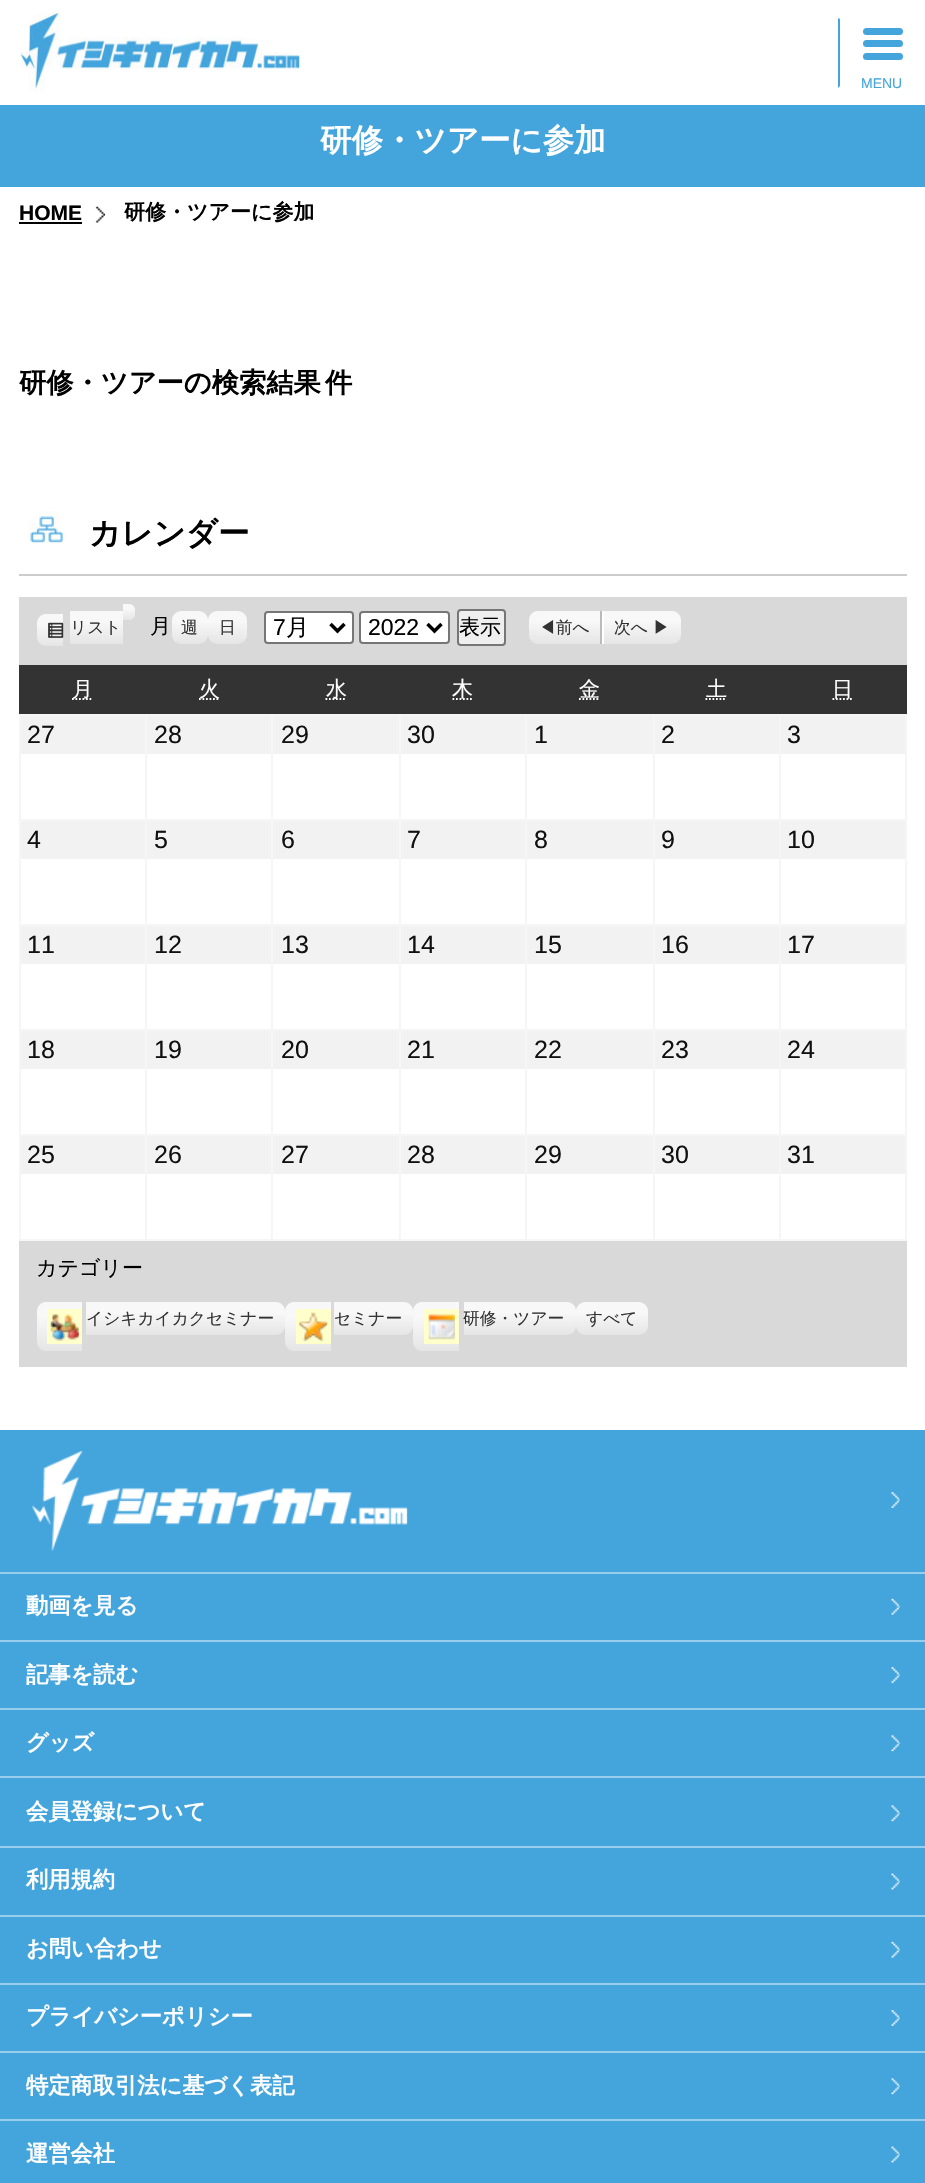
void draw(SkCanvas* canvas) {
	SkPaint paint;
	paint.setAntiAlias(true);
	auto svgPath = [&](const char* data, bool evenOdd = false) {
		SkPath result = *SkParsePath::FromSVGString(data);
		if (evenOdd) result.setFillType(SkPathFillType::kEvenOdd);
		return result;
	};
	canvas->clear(0xffffffff);
	canvas->drawImageRect(SkImages::DeferredFromEncodedData(SkData::MakeFromFileName("img1.png")), SkRect::MakeXYWH(21, 13, 279, 79), SkSamplingOptions());
	paint.setColor(0xff44a5dd);
	canvas->drawPath(svgPath("M838 88V18L840 19V86Z"), paint);
	canvas->drawRoundRect(SkRect::MakeXYWH(863, 28, 40, 7), 3.5, 3.5, paint);
	canvas->drawRoundRect(SkRect::MakeXYWH(863, 40, 40, 7), 3.5, 3.5, paint);
	canvas->drawRoundRect(SkRect::MakeXYWH(863, 53, 40, 7), 3.5, 3.5, paint);
	SkFont f1(fontMgr->matchFamilyStyle("Liberation Sans", SkFontStyle::Normal()), 14);
	f1.setSubpixel(true);
	canvas->drawString("MENU", 861, 88, f1, paint);
	canvas->drawRect(SkRect::MakeXYWH(0, 105, 925, 82), paint);
	SkFont f2(fontMgr->matchFamilyStyle("WenQuanYi Zen Hei", SkFontStyle::Bold()), 31.5);
	f2.setSubpixel(true);
	paint.setColor(0xffffffff);
	canvas->drawString("研修・ツアーに参加", 320, 151, f2, paint);
	SkFont f3(fontMgr->matchFamilyStyle("Liberation Sans", SkFontStyle::Bold()), 21);
	f3.setSubpixel(true);
	paint.setColor(0xff000000);
	canvas->drawString("HOME", 19, 220, f3, paint);
	canvas->drawRect(SkRect::MakeXYWH(19, 222, 63, 2), paint);
	canvas->drawImageRect(SkImages::DeferredFromEncodedData(SkData::MakeFromFileName("img2.png")), SkRect::MakeXYWH(95, 206, 10, 17), SkSamplingOptions());
	SkFont f4(fontMgr->matchFamilyStyle("WenQuanYi Zen Hei", SkFontStyle::Bold()), 21);
	f4.setSubpixel(true);
	canvas->drawString("研修・ツアーに参加", 124, 219, f4, paint);
	SkFont f5(fontMgr->matchFamilyStyle("WenQuanYi Zen Hei", SkFontStyle::Bold()), 27.25);
	f5.setSubpixel(true);
	canvas->drawString("研修・ツアーの検索結果", 19, 392, f5, paint);
	canvas->drawString("件", 325, 392, f5, paint);
	paint.setColor(0xffcccccc);
	canvas->drawRect(SkRect::MakeXYWH(19, 574, 888, 2), paint);
	canvas->drawImageRect(SkImages::DeferredFromEncodedData(SkData::MakeFromFileName("img3.png")), SkRect::MakeXYWH(28, 511, 39, 32), SkSamplingOptions());
	paint.setColor(0xff000000);
	canvas->drawString("カレンダー", 89, 544, f2, paint);
	paint.setColor(0xffd9d9d9);
	canvas->drawRect(SkRect::MakeXYWH(19, 597, 888, 68), paint);
	{
		const SkColor colors[] = {0xffe5e5e5, 0xfff8f8f8};
		const float stops[] = {0, 0.7};
		const SkPoint ends[] = {{50, 646}, {50, 614}};
		paint.setShader(SkGradientShader::MakeLinear(ends, colors, stops, 2, SkTileMode::kClamp));
		paint.setAlpha(255);
	}
	canvas->drawPath(svgPath("M46 614H63V646H46C41 646 37 642 37 637V623C37 618 41 614 46 614Z"), paint);
	canvas->drawImageRect(SkImages::DeferredFromEncodedData(SkData::MakeFromFileName("img4.png")), SkRect::MakeXYWH(48, 622, 16, 16), SkSamplingOptions());
	{
		const SkColor colors[] = {0xffe5e5e5, 0xfff8f8f8};
		const float stops[] = {0, 0.7};
		const SkPoint ends[] = {{96, 644}, {96, 611}};
		paint.setShader(SkGradientShader::MakeLinear(ends, colors, stops, 2, SkTileMode::kClamp));
		paint.setAlpha(255);
	}
	canvas->drawRect(SkRect::MakeXYWH(70, 611, 53, 33), paint);
	SkFont f6(fontMgr->matchFamilyStyle("WenQuanYi Zen Hei", SkFontStyle(500, SkFontStyle::kNormal_Width, SkFontStyle::kUpright_Slant)), 16.75);
	f6.setSubpixel(true);
	paint.setShader(nullptr);
	paint.setColor(0xff333333);
	canvas->drawString("リスト", 70, 633, f6, paint);
	{
		const SkColor colors[] = {0xffe5e5e5, 0xfff8f8f8};
		const float stops[] = {0, 0.7};
		const SkPoint ends[] = {{129, 620}, {129, 604}};
		paint.setShader(SkGradientShader::MakeLinear(ends, colors, stops, 2, SkTileMode::kClamp));
		paint.setAlpha(255);
	}
	canvas->drawPath(svgPath("M123 604H129C132.5 604 135 606.5 135 610V614C135 617.5 132.5 620 129 620H123Z"), paint);
	SkFont f7(fontMgr->matchFamilyStyle("WenQuanYi Zen Hei", SkFontStyle(500, SkFontStyle::kNormal_Width, SkFontStyle::kUpright_Slant)), 21);
	f7.setSubpixel(true);
	paint.setShader(nullptr);
	paint.setColor(0xff000000);
	canvas->drawString("月", 150, 633, f7, paint);
	{
		const SkColor colors[] = {0xffe5e5e5, 0xfff8f8f8};
		const float stops[] = {0, 0.7};
		const SkPoint ends[] = {{190, 644}, {190, 611}};
		paint.setShader(SkGradientShader::MakeLinear(ends, colors, stops, 2, SkTileMode::kClamp));
		paint.setAlpha(255);
	}
	canvas->drawRoundRect(SkRect::MakeXYWH(172, 611, 36, 33), 9, 9, paint);
	paint.setShader(nullptr);
	paint.setColor(0xff333333);
	canvas->drawString("週", 181, 633, f6, paint);
	{
		const SkColor colors[] = {0xffe5e5e5, 0xfff8f8f8};
		const float stops[] = {0, 0.7};
		const SkPoint ends[] = {{228, 644}, {228, 611}};
		paint.setShader(SkGradientShader::MakeLinear(ends, colors, stops, 2, SkTileMode::kClamp));
		paint.setAlpha(255);
	}
	canvas->drawRoundRect(SkRect::MakeXYWH(208, 611, 39, 33), 9, 9, paint);
	paint.setShader(nullptr);
	paint.setColor(0xff333333);
	canvas->drawString("日", 219, 633, f6, paint);
	paint.setColor(0xffffffff);
	canvas->drawRoundRect(SkRect::MakeXYWH(265, 612, 88, 31), 3, 3, paint);
	paint.setStroke(true);
	paint.setStrokeWidth(2);
	paint.setColor(0xff767676);
	canvas->drawRoundRect(SkRect::MakeXYWH(265, 612, 88, 31), 3, 3, paint);
	paint.setStrokeWidth(3.5);
	paint.setColor(0xff000000);
	canvas->drawPath(svgPath("M330.5 624L337.5 631L344.5 624"), paint);
	SkFont f8(fontMgr->matchFamilyStyle("Liberation Sans", SkFontStyle::Normal()), 23);
	f8.setSubpixel(true);
	paint.setStroke(false);
	canvas->drawString("7", 273, 635, f8, paint);
	SkFont f9(fontMgr->matchFamilyStyle("WenQuanYi Zen Hei", SkFontStyle(500, SkFontStyle::kNormal_Width, SkFontStyle::kUpright_Slant)), 23);
	f9.setSubpixel(true);
	canvas->drawString("月", 286, 635, f9, paint);
	paint.setColor(0xffffffff);
	canvas->drawRoundRect(SkRect::MakeXYWH(360, 612, 89, 31), 3, 3, paint);
	paint.setStroke(true);
	paint.setStrokeWidth(2);
	paint.setColor(0xff767676);
	canvas->drawRoundRect(SkRect::MakeXYWH(360, 612, 89, 31), 3, 3, paint);
	paint.setStrokeWidth(3.5);
	paint.setColor(0xff000000);
	canvas->drawPath(svgPath("M427.5 624L434.5 631L441.5 624"), paint);
	paint.setStroke(false);
	canvas->drawString("2022", 368, 635, f8, paint);
	paint.setColor(0xffefefef);
	canvas->drawRoundRect(SkRect::MakeXYWH(458, 610, 47, 35), 3, 3, paint);
	paint.setStroke(true);
	paint.setStrokeWidth(2);
	paint.setColor(0xff767676);
	canvas->drawRoundRect(SkRect::MakeXYWH(458, 610, 47, 35), 3, 3, paint);
	paint.setStroke(false);
	paint.setColor(0xff000000);
	canvas->drawString("表示", 459, 634, f7, paint);
	{
		const SkColor colors[] = {0xffe5e5e5, 0xfff8f8f8};
		const float stops[] = {0, 0.7};
		const SkPoint ends[] = {{542, 644}, {542, 611}};
		paint.setShader(SkGradientShader::MakeLinear(ends, colors, stops, 2, SkTileMode::kClamp));
		paint.setAlpha(255);
	}
	canvas->drawPath(svgPath("M538 611H555V644H538C533 644 529 640 529 635V620C529 615 533 611 538 611Z"), paint);
	{
		const SkColor colors[] = {0xffe5e5e5, 0xfff8f8f8};
		const float stops[] = {0, 0.7};
		const SkPoint ends[] = {{578, 644}, {578, 611}};
		paint.setShader(SkGradientShader::MakeLinear(ends, colors, stops, 2, SkTileMode::kClamp));
		paint.setAlpha(255);
	}
	canvas->drawRect(SkRect::MakeXYWH(555, 611, 45, 33), paint);
	paint.setShader(nullptr);
	paint.setColor(0xff333333);
	canvas->drawString("◀前へ", 539, 633, f6, paint);
	paint.setColor(0xffbbbbbb);
	canvas->drawRect(SkRect::MakeXYWH(600, 611, 2, 33), paint);
	{
		const SkColor colors[] = {0xffe5e5e5, 0xfff8f8f8};
		const float stops[] = {0, 0.7};
		const SkPoint ends[] = {{626, 644}, {626, 611}};
		paint.setShader(SkGradientShader::MakeLinear(ends, colors, stops, 2, SkTileMode::kClamp));
		paint.setAlpha(255);
	}
	canvas->drawRect(SkRect::MakeXYWH(604, 611, 44, 33), paint);
	paint.setShader(nullptr);
	paint.setColor(0xff333333);
	canvas->drawString("次へ", 614, 633, f6, paint);
	paint.setColor(0xffffffff);
	canvas->drawRect(SkRect::MakeXYWH(602, 611, 2, 33), paint);
	{
		const SkColor colors[] = {0xffe5e5e5, 0xfff8f8f8};
		const float stops[] = {0, 0.7};
		const SkPoint ends[] = {{664, 644}, {664, 611}};
		paint.setShader(SkGradientShader::MakeLinear(ends, colors, stops, 2, SkTileMode::kClamp));
		paint.setAlpha(255);
	}
	canvas->drawPath(svgPath("M648 611H672C677 611 681 615 681 620V635C681 640 677 644 672 644H648Z"), paint);
	paint.setShader(nullptr);
	paint.setColor(0xff333333);
	canvas->drawString("▶", 653, 633, f6, paint);
	canvas->drawRect(SkRect::MakeXYWH(19, 665, 888, 49), paint);
	paint.setStroke(true);
	paint.setStrokeWidth(1.8);
	paint.setColor(0xffffffff);
	paint.setPathEffect(SkDashPathEffect::Make({{1.75f, 1.75f}}, 0));
	canvas->drawPath(svgPath("M72 699H93"), paint);
	paint.setPathEffect(nullptr);
	paint.setStroke(false);
	canvas->drawString("月", 72, 696, f7, paint);
	paint.setStroke(true);
	paint.setPathEffect(SkDashPathEffect::Make({{1.75f, 1.75f}}, 0));
	canvas->drawPath(svgPath("M199 699H220"), paint);
	paint.setPathEffect(nullptr);
	paint.setStroke(false);
	canvas->drawString("火", 199, 696, f7, paint);
	paint.setStroke(true);
	paint.setPathEffect(SkDashPathEffect::Make({{1.75f, 1.75f}}, 0));
	canvas->drawPath(svgPath("M325.5 699H346.5"), paint);
	paint.setPathEffect(nullptr);
	paint.setStroke(false);
	canvas->drawString("水", 326, 696, f7, paint);
	paint.setStroke(true);
	paint.setPathEffect(SkDashPathEffect::Make({{1.75f, 1.75f}}, 0));
	canvas->drawPath(svgPath("M452.5 699H473.5"), paint);
	paint.setPathEffect(nullptr);
	paint.setStroke(false);
	canvas->drawString("木", 452, 696, f7, paint);
	canvas->drawString("金", 579, 696, f7, paint);
	paint.setStroke(true);
	paint.setPathEffect(SkDashPathEffect::Make({{1.75f, 1.75f}}, 0));
	canvas->drawPath(svgPath("M579 699H600"), paint);
	paint.setPathEffect(nullptr);
	paint.setStroke(false);
	canvas->drawString("土", 706, 696, f7, paint);
	paint.setStroke(true);
	paint.setPathEffect(SkDashPathEffect::Make({{1.75f, 1.75f}}, 0));
	canvas->drawPath(svgPath("M705.5 699H726.5"), paint);
	paint.setPathEffect(nullptr);
	paint.setPathEffect(SkDashPathEffect::Make({{1.75f, 1.75f}}, 0));
	canvas->drawPath(svgPath("M832.5 699H853.5"), paint);
	paint.setPathEffect(nullptr);
	paint.setStroke(false);
	canvas->drawString("日", 832, 696, f7, paint);
	paint.setColor(0xfff6f6f6);
	canvas->drawRect(SkRect::MakeXYWH(779, 714, 128, 2), paint);
	canvas->drawRect(SkRect::MakeXYWH(779, 819, 128, 2), paint);
	canvas->drawRect(SkRect::MakeXYWH(779, 924, 128, 2), paint);
	canvas->drawRect(SkRect::MakeXYWH(779, 1029, 128, 2), paint);
	canvas->drawRect(SkRect::MakeXYWH(779, 1134, 128, 2), paint);
	canvas->drawRect(SkRect::MakeXYWH(905, 1134, 2, 107), paint);
	canvas->drawRect(SkRect::MakeXYWH(779, 1239, 128, 2), paint);
	canvas->drawRect(SkRect::MakeXYWH(779, 1134, 2, 107), paint);
	canvas->drawRect(SkRect::MakeXYWH(653, 1134, 128, 2), paint);
	canvas->drawRect(SkRect::MakeXYWH(779, 1029, 2, 107), paint);
	canvas->drawRect(SkRect::MakeXYWH(653, 1029, 128, 2), paint);
	canvas->drawRect(SkRect::MakeXYWH(779, 924, 2, 107), paint);
	canvas->drawRect(SkRect::MakeXYWH(653, 924, 128, 2), paint);
	canvas->drawRect(SkRect::MakeXYWH(779, 819, 2, 107), paint);
	canvas->drawRect(SkRect::MakeXYWH(653, 819, 128, 2), paint);
	canvas->drawRect(SkRect::MakeXYWH(779, 714, 2, 107), paint);
	canvas->drawRect(SkRect::MakeXYWH(653, 714, 128, 2), paint);
	canvas->drawRect(SkRect::MakeXYWH(653, 1239, 128, 2), paint);
	canvas->drawRect(SkRect::MakeXYWH(653, 1134, 2, 107), paint);
	canvas->drawRect(SkRect::MakeXYWH(525, 1134, 130, 2), paint);
	canvas->drawRect(SkRect::MakeXYWH(653, 1029, 2, 107), paint);
	canvas->drawRect(SkRect::MakeXYWH(525, 1029, 130, 2), paint);
	canvas->drawRect(SkRect::MakeXYWH(653, 924, 2, 107), paint);
	canvas->drawRect(SkRect::MakeXYWH(525, 924, 130, 2), paint);
	canvas->drawRect(SkRect::MakeXYWH(653, 819, 2, 107), paint);
	canvas->drawRect(SkRect::MakeXYWH(525, 819, 130, 2), paint);
	canvas->drawRect(SkRect::MakeXYWH(653, 714, 2, 107), paint);
	canvas->drawRect(SkRect::MakeXYWH(525, 714, 130, 2), paint);
	canvas->drawRect(SkRect::MakeXYWH(525, 1239, 130, 2), paint);
	canvas->drawRect(SkRect::MakeXYWH(525, 1134, 2, 107), paint);
	canvas->drawRect(SkRect::MakeXYWH(399, 1134, 128, 2), paint);
	canvas->drawRect(SkRect::MakeXYWH(525, 1029, 2, 107), paint);
	canvas->drawRect(SkRect::MakeXYWH(399, 1029, 128, 2), paint);
	canvas->drawRect(SkRect::MakeXYWH(525, 924, 2, 107), paint);
	canvas->drawRect(SkRect::MakeXYWH(399, 924, 128, 2), paint);
	canvas->drawRect(SkRect::MakeXYWH(525, 819, 2, 107), paint);
	canvas->drawRect(SkRect::MakeXYWH(399, 819, 128, 2), paint);
	canvas->drawRect(SkRect::MakeXYWH(525, 714, 2, 107), paint);
	canvas->drawRect(SkRect::MakeXYWH(399, 714, 128, 2), paint);
	canvas->drawRect(SkRect::MakeXYWH(399, 1239, 128, 2), paint);
	canvas->drawRect(SkRect::MakeXYWH(399, 1134, 2, 107), paint);
	canvas->drawRect(SkRect::MakeXYWH(271, 1134, 130, 2), paint);
	canvas->drawRect(SkRect::MakeXYWH(399, 1029, 2, 107), paint);
	canvas->drawRect(SkRect::MakeXYWH(271, 1029, 130, 2), paint);
	canvas->drawRect(SkRect::MakeXYWH(399, 924, 2, 107), paint);
	canvas->drawRect(SkRect::MakeXYWH(271, 924, 130, 2), paint);
	canvas->drawRect(SkRect::MakeXYWH(399, 819, 2, 107), paint);
	canvas->drawRect(SkRect::MakeXYWH(271, 819, 130, 2), paint);
	canvas->drawRect(SkRect::MakeXYWH(399, 714, 2, 107), paint);
	canvas->drawRect(SkRect::MakeXYWH(271, 714, 130, 2), paint);
	canvas->drawRect(SkRect::MakeXYWH(271, 1239, 130, 2), paint);
	canvas->drawRect(SkRect::MakeXYWH(271, 1134, 2, 107), paint);
	canvas->drawRect(SkRect::MakeXYWH(145, 1134, 128, 2), paint);
	canvas->drawRect(SkRect::MakeXYWH(271, 1029, 2, 107), paint);
	canvas->drawRect(SkRect::MakeXYWH(145, 1029, 128, 2), paint);
	canvas->drawRect(SkRect::MakeXYWH(271, 924, 2, 107), paint);
	canvas->drawRect(SkRect::MakeXYWH(145, 924, 128, 2), paint);
	canvas->drawRect(SkRect::MakeXYWH(271, 819, 2, 107), paint);
	canvas->drawRect(SkRect::MakeXYWH(145, 819, 128, 2), paint);
	canvas->drawRect(SkRect::MakeXYWH(271, 714, 2, 107), paint);
	canvas->drawRect(SkRect::MakeXYWH(145, 714, 128, 2), paint);
	canvas->drawRect(SkRect::MakeXYWH(145, 1239, 128, 2), paint);
	canvas->drawRect(SkRect::MakeXYWH(145, 1134, 2, 107), paint);
	canvas->drawRect(SkRect::MakeXYWH(19, 1134, 128, 2), paint);
	canvas->drawRect(SkRect::MakeXYWH(145, 1029, 2, 107), paint);
	canvas->drawRect(SkRect::MakeXYWH(19, 1029, 128, 2), paint);
	canvas->drawRect(SkRect::MakeXYWH(145, 924, 2, 107), paint);
	canvas->drawRect(SkRect::MakeXYWH(19, 924, 128, 2), paint);
	canvas->drawRect(SkRect::MakeXYWH(145, 819, 2, 107), paint);
	canvas->drawRect(SkRect::MakeXYWH(19, 819, 128, 2), paint);
	canvas->drawRect(SkRect::MakeXYWH(145, 714, 2, 107), paint);
	canvas->drawRect(SkRect::MakeXYWH(19, 714, 128, 2), paint);
	canvas->drawRect(SkRect::MakeXYWH(19, 1239, 128, 2), paint);
	canvas->drawRect(SkRect::MakeXYWH(19, 1134, 2, 107), paint);
	canvas->drawRect(SkRect::MakeXYWH(19, 1029, 2, 107), paint);
	canvas->drawRect(SkRect::MakeXYWH(19, 924, 2, 107), paint);
	canvas->drawRect(SkRect::MakeXYWH(19, 819, 2, 107), paint);
	canvas->drawRect(SkRect::MakeXYWH(19, 714, 2, 107), paint);
	paint.setColor(0xfff2f2f2);
	canvas->drawRect(SkRect::MakeXYWH(21, 716, 124, 38), paint);
	SkFont f10(fontMgr->matchFamilyStyle("Liberation Sans", SkFontStyle::Normal()), 25);
	f10.setSubpixel(true);
	paint.setColor(0xff111111);
	canvas->drawString("27", 27, 743, f10, paint);
	paint.setColor(0xfff2f2f2);
	canvas->drawRect(SkRect::MakeXYWH(147, 716, 124, 38), paint);
	paint.setColor(0xff111111);
	canvas->drawString("28", 154, 743, f10, paint);
	paint.setColor(0xfff2f2f2);
	canvas->drawRect(SkRect::MakeXYWH(273, 716, 126, 38), paint);
	paint.setColor(0xff111111);
	canvas->drawString("29", 281, 743, f10, paint);
	paint.setColor(0xfff2f2f2);
	canvas->drawRect(SkRect::MakeXYWH(401, 716, 124, 38), paint);
	paint.setColor(0xff111111);
	canvas->drawString("30", 407, 743, f10, paint);
	paint.setColor(0xfff2f2f2);
	canvas->drawRect(SkRect::MakeXYWH(527, 716, 126, 38), paint);
	paint.setColor(0xff111111);
	canvas->drawString("1", 534, 743, f10, paint);
	paint.setColor(0xfff2f2f2);
	canvas->drawRect(SkRect::MakeXYWH(655, 716, 124, 38), paint);
	paint.setColor(0xff111111);
	canvas->drawString("2", 661, 743, f10, paint);
	paint.setColor(0xfff6f6f6);
	canvas->drawRect(SkRect::MakeXYWH(905, 1029, 2, 107), paint);
	canvas->drawRect(SkRect::MakeXYWH(905, 924, 2, 107), paint);
	canvas->drawRect(SkRect::MakeXYWH(905, 819, 2, 107), paint);
	canvas->drawRect(SkRect::MakeXYWH(905, 714, 2, 107), paint);
	paint.setColor(0xfff2f2f2);
	canvas->drawRect(SkRect::MakeXYWH(781, 716, 124, 38), paint);
	paint.setColor(0xff111111);
	canvas->drawString("3", 787, 743, f10, paint);
	paint.setColor(0xfff2f2f2);
	canvas->drawRect(SkRect::MakeXYWH(21, 821, 124, 38), paint);
	paint.setColor(0xff111111);
	canvas->drawString("4", 27, 848, f10, paint);
	paint.setColor(0xfff2f2f2);
	canvas->drawRect(SkRect::MakeXYWH(147, 821, 124, 38), paint);
	paint.setColor(0xff111111);
	canvas->drawString("5", 154, 848, f10, paint);
	paint.setColor(0xfff2f2f2);
	canvas->drawRect(SkRect::MakeXYWH(273, 821, 126, 38), paint);
	paint.setColor(0xff111111);
	canvas->drawString("6", 281, 848, f10, paint);
	paint.setColor(0xfff2f2f2);
	canvas->drawRect(SkRect::MakeXYWH(401, 821, 124, 38), paint);
	paint.setColor(0xff111111);
	canvas->drawString("7", 407, 848, f10, paint);
	paint.setColor(0xfff2f2f2);
	canvas->drawRect(SkRect::MakeXYWH(527, 821, 126, 38), paint);
	paint.setColor(0xff111111);
	canvas->drawString("8", 534, 848, f10, paint);
	paint.setColor(0xfff2f2f2);
	canvas->drawRect(SkRect::MakeXYWH(655, 821, 124, 38), paint);
	paint.setColor(0xff111111);
	canvas->drawString("9", 661, 848, f10, paint);
	paint.setColor(0xfff2f2f2);
	canvas->drawRect(SkRect::MakeXYWH(781, 821, 124, 38), paint);
	paint.setColor(0xff111111);
	canvas->drawString("10", 787, 848, f10, paint);
	paint.setColor(0xfff2f2f2);
	canvas->drawRect(SkRect::MakeXYWH(21, 926, 124, 38), paint);
	paint.setColor(0xff111111);
	canvas->drawString("11", 27, 953, f10, paint);
	paint.setColor(0xfff2f2f2);
	canvas->drawRect(SkRect::MakeXYWH(147, 926, 124, 38), paint);
	paint.setColor(0xff111111);
	canvas->drawString("12", 154, 953, f10, paint);
	paint.setColor(0xfff2f2f2);
	canvas->drawRect(SkRect::MakeXYWH(273, 926, 126, 38), paint);
	paint.setColor(0xff111111);
	canvas->drawString("13", 281, 953, f10, paint);
	paint.setColor(0xfff2f2f2);
	canvas->drawRect(SkRect::MakeXYWH(401, 926, 124, 38), paint);
	paint.setColor(0xff111111);
	canvas->drawString("14", 407, 953, f10, paint);
	paint.setColor(0xfff2f2f2);
	canvas->drawRect(SkRect::MakeXYWH(527, 926, 126, 38), paint);
	paint.setColor(0xff111111);
	canvas->drawString("15", 534, 953, f10, paint);
	paint.setColor(0xfff2f2f2);
	canvas->drawRect(SkRect::MakeXYWH(655, 926, 124, 38), paint);
	paint.setColor(0xff111111);
	canvas->drawString("16", 661, 953, f10, paint);
	paint.setColor(0xfff2f2f2);
	canvas->drawRect(SkRect::MakeXYWH(781, 926, 124, 38), paint);
	paint.setColor(0xff111111);
	canvas->drawString("17", 787, 953, f10, paint);
	paint.setColor(0xfff2f2f2);
	canvas->drawRect(SkRect::MakeXYWH(21, 1031, 124, 38), paint);
	paint.setColor(0xff111111);
	canvas->drawString("18", 27, 1058, f10, paint);
	paint.setColor(0xfff2f2f2);
	canvas->drawRect(SkRect::MakeXYWH(147, 1031, 124, 38), paint);
	paint.setColor(0xff111111);
	canvas->drawString("19", 154, 1058, f10, paint);
	paint.setColor(0xfff2f2f2);
	canvas->drawRect(SkRect::MakeXYWH(273, 1031, 126, 38), paint);
	paint.setColor(0xff111111);
	canvas->drawString("20", 281, 1058, f10, paint);
	paint.setColor(0xfff2f2f2);
	canvas->drawRect(SkRect::MakeXYWH(401, 1031, 124, 38), paint);
	paint.setColor(0xff111111);
	canvas->drawString("21", 407, 1058, f10, paint);
	paint.setColor(0xfff2f2f2);
	canvas->drawRect(SkRect::MakeXYWH(527, 1031, 126, 38), paint);
	paint.setColor(0xff111111);
	canvas->drawString("22", 534, 1058, f10, paint);
	paint.setColor(0xfff2f2f2);
	canvas->drawRect(SkRect::MakeXYWH(655, 1031, 124, 38), paint);
	paint.setColor(0xff111111);
	canvas->drawString("23", 661, 1058, f10, paint);
	paint.setColor(0xfff2f2f2);
	canvas->drawRect(SkRect::MakeXYWH(781, 1031, 124, 38), paint);
	paint.setColor(0xff111111);
	canvas->drawString("24", 787, 1058, f10, paint);
	paint.setColor(0xfff2f2f2);
	canvas->drawRect(SkRect::MakeXYWH(21, 1136, 124, 38), paint);
	paint.setColor(0xff111111);
	canvas->drawString("25", 27, 1163, f10, paint);
	paint.setColor(0xfff2f2f2);
	canvas->drawRect(SkRect::MakeXYWH(147, 1136, 124, 38), paint);
	paint.setColor(0xff111111);
	canvas->drawString("26", 154, 1163, f10, paint);
	paint.setColor(0xfff2f2f2);
	canvas->drawRect(SkRect::MakeXYWH(273, 1136, 126, 38), paint);
	paint.setColor(0xff111111);
	canvas->drawString("27", 281, 1163, f10, paint);
	paint.setColor(0xfff2f2f2);
	canvas->drawRect(SkRect::MakeXYWH(401, 1136, 124, 38), paint);
	paint.setColor(0xff111111);
	canvas->drawString("28", 407, 1163, f10, paint);
	paint.setColor(0xfff2f2f2);
	canvas->drawRect(SkRect::MakeXYWH(527, 1136, 126, 38), paint);
	paint.setColor(0xff111111);
	canvas->drawString("29", 534, 1163, f10, paint);
	paint.setColor(0xfff2f2f2);
	canvas->drawRect(SkRect::MakeXYWH(655, 1136, 124, 38), paint);
	paint.setColor(0xff111111);
	canvas->drawString("30", 661, 1163, f10, paint);
	paint.setColor(0xfff2f2f2);
	canvas->drawRect(SkRect::MakeXYWH(781, 1136, 124, 38), paint);
	paint.setColor(0xff111111);
	canvas->drawString("31", 787, 1163, f10, paint);
	paint.setColor(0xffd9d9d9);
	canvas->drawRect(SkRect::MakeXYWH(19, 1241, 888, 126), paint);
	paint.setColor(0xff000000);
	canvas->drawString("カテゴリー", 36, 1275, f7, paint);
	{
		const SkColor colors[] = {0xffe5e5e5, 0xfff8f8f8};
		const float stops[] = {0, 0.7};
		const SkPoint ends[] = {{60, 1351}, {60, 1302}};
		paint.setShader(SkGradientShader::MakeLinear(ends, colors, stops, 2, SkTileMode::kClamp));
		paint.setAlpha(255);
	}
	canvas->drawPath(svgPath("M46 1302H82V1351H46C41 1351 37 1347 37 1342V1311C37 1306 41 1302 46 1302Z"), paint);
	paint.setShader(nullptr);
	paint.setColor(0xffffffcc);
	canvas->drawRect(SkRect::MakeXYWH(47, 1309, 35, 35), paint);
	canvas->drawImageRect(SkImages::DeferredFromEncodedData(SkData::MakeFromFileName("img5.png")), SkRect::MakeXYWH(50, 1314, 29, 27), SkSamplingOptions());
	{
		const SkColor colors[] = {0xffe5e5e5, 0xfff8f8f8};
		const float stops[] = {0, 0.7};
		const SkPoint ends[] = {{186, 1335}, {186, 1302}};
		paint.setShader(SkGradientShader::MakeLinear(ends, colors, stops, 2, SkTileMode::kClamp));
		paint.setAlpha(255);
	}
	canvas->drawPath(svgPath("M86 1302H276C281 1302 285 1306 285 1311V1326C285 1331 281 1335 276 1335H86Z"), paint);
	paint.setShader(nullptr);
	paint.setColor(0xff333333);
	canvas->drawString("イシキカイカクセミナー", 86, 1324, f6, paint);
	{
		const SkColor colors[] = {0xffe5e5e5, 0xfff8f8f8};
		const float stops[] = {0, 0.7};
		const SkPoint ends[] = {{308, 1351}, {308, 1302}};
		paint.setShader(SkGradientShader::MakeLinear(ends, colors, stops, 2, SkTileMode::kClamp));
		paint.setAlpha(255);
	}
	canvas->drawPath(svgPath("M294 1302H331V1351H294C289 1351 285 1347 285 1342V1311C285 1306 289 1302 294 1302Z"), paint);
	paint.setShader(nullptr);
	paint.setColor(0xffffffcc);
	canvas->drawRect(SkRect::MakeXYWH(296, 1309, 35, 35), paint);
	canvas->drawImageRect(SkImages::DeferredFromEncodedData(SkData::MakeFromFileName("img6.png")), SkRect::MakeXYWH(299, 1312, 29, 29), SkSamplingOptions());
	{
		const SkColor colors[] = {0xffe5e5e5, 0xfff8f8f8};
		const float stops[] = {0, 0.7};
		const SkPoint ends[] = {{374, 1335}, {374, 1302}};
		paint.setShader(SkGradientShader::MakeLinear(ends, colors, stops, 2, SkTileMode::kClamp));
		paint.setAlpha(255);
	}
	canvas->drawPath(svgPath("M334 1302H404C409 1302 413 1306 413 1311V1326C413 1331 409 1335 404 1335H334Z"), paint);
	paint.setShader(nullptr);
	paint.setColor(0xff333333);
	canvas->drawString("セミナー", 334, 1324, f6, paint);
	{
		const SkColor colors[] = {0xffe5e5e5, 0xfff8f8f8};
		const float stops[] = {0, 0.7};
		const SkPoint ends[] = {{436, 1351}, {436, 1302}};
		paint.setShader(SkGradientShader::MakeLinear(ends, colors, stops, 2, SkTileMode::kClamp));
		paint.setAlpha(255);
	}
	canvas->drawPath(svgPath("M422 1302H459V1351H422C417 1351 413 1347 413 1342V1311C413 1306 417 1302 422 1302Z"), paint);
	paint.setShader(nullptr);
	paint.setColor(0xffffffcc);
	canvas->drawRect(SkRect::MakeXYWH(424, 1309, 35, 35), paint);
	canvas->drawImageRect(SkImages::DeferredFromEncodedData(SkData::MakeFromFileName("img7.png")), SkRect::MakeXYWH(428, 1314, 27, 26), SkSamplingOptions());
	{
		const SkColor colors[] = {0xffe5e5e5, 0xfff8f8f8};
		const float stops[] = {0, 0.7};
		const SkPoint ends[] = {{520, 1335}, {520, 1302}};
		paint.setShader(SkGradientShader::MakeLinear(ends, colors, stops, 2, SkTileMode::kClamp));
		paint.setAlpha(255);
	}
	canvas->drawPath(svgPath("M464 1302H567C572 1302 576 1306 576 1311V1326C576 1331 572 1335 567 1335H464Z"), paint);
	paint.setShader(nullptr);
	paint.setColor(0xff333333);
	canvas->drawString("研修・ツアー", 463, 1324, f6, paint);
	{
		const SkColor colors[] = {0xffe5e5e5, 0xfff8f8f8};
		const float stops[] = {0, 0.7};
		const SkPoint ends[] = {{612, 1335}, {612, 1302}};
		paint.setShader(SkGradientShader::MakeLinear(ends, colors, stops, 2, SkTileMode::kClamp));
		paint.setAlpha(255);
	}
	canvas->drawRoundRect(SkRect::MakeXYWH(576, 1302, 72, 33), 9, 9, paint);
	paint.setShader(nullptr);
	paint.setColor(0xff333333);
	canvas->drawString("すべて", 586, 1324, f6, paint);
	paint.setColor(0xff44a5dd);
	canvas->drawRect(SkRect::MakeXYWH(0, 1430, 925, 753), paint);
	canvas->drawImageRect(SkImages::DeferredFromEncodedData(SkData::MakeFromFileName("img8.png")), SkRect::MakeXYWH(32, 1451, 376, 100), SkSamplingOptions());
	canvas->drawImageRect(SkImages::DeferredFromEncodedData(SkData::MakeFromFileName("img9.png")), SkRect::MakeXYWH(891, 1492, 9, 16), SkSamplingOptions());
	paint.setColor(0xff98ceec);
	canvas->drawRect(SkRect::MakeXYWH(0, 1572, 925, 2), paint);
	SkFont f11(fontMgr->matchFamilyStyle("WenQuanYi Zen Hei", SkFontStyle::Bold()), 22.25);
	f11.setSubpixel(true);
	paint.setColor(0xffffffff);
	canvas->drawString("動画を見る", 26, 1613, f11, paint);
	canvas->drawImageRect(SkImages::DeferredFromEncodedData(SkData::MakeFromFileName("img10.png")), SkRect::MakeXYWH(891, 1598, 9, 17), SkSamplingOptions());
	paint.setColor(0xff98ceec);
	canvas->drawRect(SkRect::MakeXYWH(0, 1640, 925, 2), paint);
	paint.setColor(0xffffffff);
	canvas->drawString("記事を読む", 26, 1682, f11, paint);
	canvas->drawImageRect(SkImages::DeferredFromEncodedData(SkData::MakeFromFileName("img9.png")), SkRect::MakeXYWH(891, 1667, 9, 16), SkSamplingOptions());
	paint.setColor(0xff98ceec);
	canvas->drawRect(SkRect::MakeXYWH(0, 1708, 925, 2), paint);
	paint.setColor(0xffffffff);
	canvas->drawString("グッズ", 26, 1750, f11, paint);
	canvas->drawImageRect(SkImages::DeferredFromEncodedData(SkData::MakeFromFileName("img11.png")), SkRect::MakeXYWH(891, 1735, 9, 17), SkSamplingOptions());
	paint.setColor(0xff98ceec);
	canvas->drawRect(SkRect::MakeXYWH(0, 1776, 925, 2), paint);
	paint.setColor(0xffffffff);
	canvas->drawString("会員登録について", 26, 1819, f11, paint);
	canvas->drawImageRect(SkImages::DeferredFromEncodedData(SkData::MakeFromFileName("img11.png")), SkRect::MakeXYWH(891, 1805, 9, 17), SkSamplingOptions());
	paint.setColor(0xff98ceec);
	canvas->drawRect(SkRect::MakeXYWH(0, 1846, 925, 2), paint);
	paint.setColor(0xffffffff);
	canvas->drawString("利用規約", 26, 1887, f11, paint);
	canvas->drawImageRect(SkImages::DeferredFromEncodedData(SkData::MakeFromFileName("img12.png")), SkRect::MakeXYWH(891, 1873, 9, 17), SkSamplingOptions());
	paint.setColor(0xff98ceec);
	canvas->drawRect(SkRect::MakeXYWH(0, 1915, 925, 2), paint);
	paint.setColor(0xffffffff);
	canvas->drawString("お問い合わせ", 26, 1956, f11, paint);
	canvas->drawImageRect(SkImages::DeferredFromEncodedData(SkData::MakeFromFileName("img10.png")), SkRect::MakeXYWH(891, 1941, 9, 17), SkSamplingOptions());
	paint.setColor(0xff98ceec);
	canvas->drawRect(SkRect::MakeXYWH(0, 1983, 925, 2), paint);
	paint.setColor(0xffffffff);
	canvas->drawString("プライバシーポリシー", 26, 2024, f11, paint);
	canvas->drawImageRect(SkImages::DeferredFromEncodedData(SkData::MakeFromFileName("img9.png")), SkRect::MakeXYWH(891, 2010, 9, 16), SkSamplingOptions());
	paint.setColor(0xff98ceec);
	canvas->drawRect(SkRect::MakeXYWH(0, 2051, 925, 2), paint);
	paint.setColor(0xffffffff);
	canvas->drawString("特定商取引法に基づく表記", 26, 2093, f11, paint);
	canvas->drawImageRect(SkImages::DeferredFromEncodedData(SkData::MakeFromFileName("img11.png")), SkRect::MakeXYWH(891, 2078, 9, 17), SkSamplingOptions());
	paint.setColor(0xff98ceec);
	canvas->drawRect(SkRect::MakeXYWH(0, 2119, 925, 2), paint);
	paint.setColor(0xffffffff);
	canvas->drawString("運営会社", 26, 2161, f11, paint);
	canvas->drawImageRect(SkImages::DeferredFromEncodedData(SkData::MakeFromFileName("img13.png")), SkRect::MakeXYWH(891, 2146, 9, 17), SkSamplingOptions());
}
